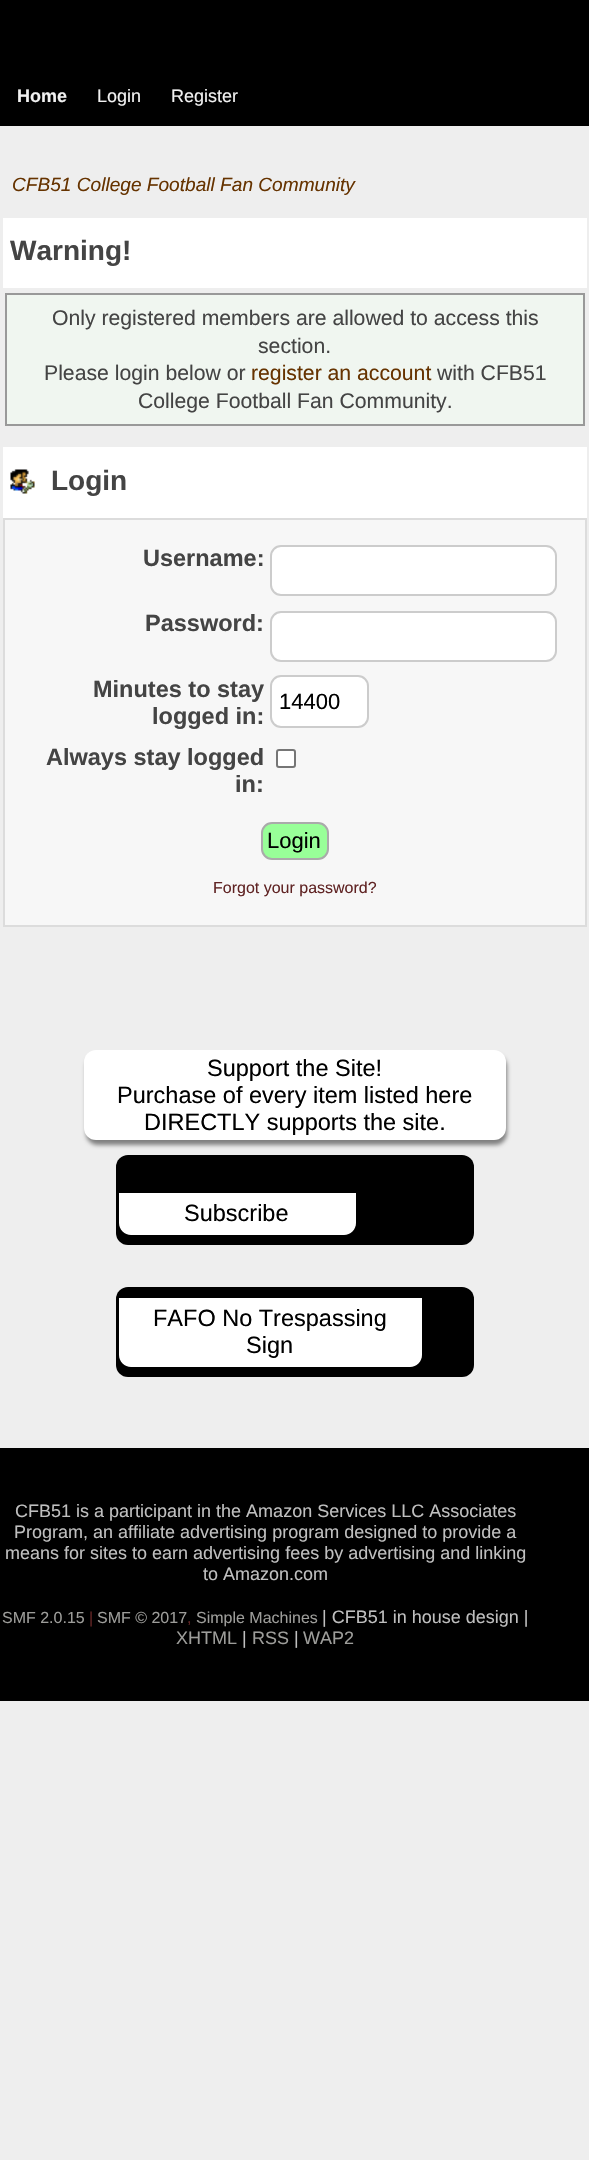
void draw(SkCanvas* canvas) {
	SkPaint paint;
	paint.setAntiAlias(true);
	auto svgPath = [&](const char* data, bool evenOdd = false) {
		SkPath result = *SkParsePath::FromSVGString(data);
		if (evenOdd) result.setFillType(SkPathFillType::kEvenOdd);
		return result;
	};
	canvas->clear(0xffeeeeee);
	paint.setColor(0xff000000);
	canvas->drawRect(SkRect::MakeXYWH(0, 0, 589, 126), paint);
	SkFont f1(fontMgr->matchFamilyStyle("Liberation Sans", SkFontStyle::Bold()), 18);
	f1.setSubpixel(true);
	paint.setColor(0xfff1f1f1);
	canvas->drawString("Home", 17, 102, f1, paint);
	SkFont f2(fontMgr->matchFamilyStyle("Liberation Sans", SkFontStyle::Normal()), 18);
	f2.setSubpixel(true);
	canvas->drawString("Login", 97, 102, f2, paint);
	canvas->drawString("Register", 171, 102, f2, paint);
	SkFont f3(fontMgr->matchFamilyStyle("Liberation Sans", SkFontStyle::Italic()), 19.1);
	f3.setSubpixel(true);
	paint.setColor(0xff663300);
	canvas->drawString("CFB51 College Football Fan Community", 12, 191, f3, paint);
	paint.setColor(0xffffffff);
	canvas->drawRect(SkRect::MakeXYWH(3, 218, 584, 70), paint);
	SkFont f4(fontMgr->matchFamilyStyle("Liberation Sans", SkFontStyle::Bold()), 28);
	f4.setSubpixel(true);
	paint.setColor(0xff444444);
	canvas->drawString("Warning!", 10, 260, f4, paint);
	paint.setColor(0xfff0f6f0);
	canvas->drawRect(SkRect::MakeXYWH(6, 294, 578, 131), paint);
	paint.setStroke(true);
	paint.setStrokeWidth(2);
	paint.setColor(0xff999999);
	canvas->drawRect(SkRect::MakeXYWH(6, 294, 578, 131), paint);
	SkFont f5(fontMgr->matchFamilyStyle("Liberation Sans", SkFontStyle::Normal()), 21.2);
	f5.setSubpixel(true);
	paint.setStroke(false);
	paint.setColor(0xff444444);
	canvas->drawString("Only registered members are allowed to access this", 52, 325, f5, paint);
	canvas->drawString("section.", 258, 353, f5, paint);
	canvas->drawString("Please login below or", 44, 380, f5, paint);
	paint.setColor(0xff663300);
	canvas->drawString("register an account", 251, 380, f5, paint);
	paint.setColor(0xff444444);
	canvas->drawString("with CFB51", 437, 380, f5, paint);
	canvas->drawString("College Football Fan Community.", 138, 408, f5, paint);
	paint.setColor(0xffffffff);
	canvas->drawRect(SkRect::MakeXYWH(3, 447, 584, 71), paint);
	canvas->drawImageRect(SkImages::DeferredFromEncodedData(SkData::MakeFromFileName("img1.png")), SkRect::MakeXYWH(10, 469, 25, 25), SkSamplingOptions());
	paint.setColor(0xff444444);
	canvas->drawString("Login", 51, 490, f4, paint);
	paint.setColor(0xfff7f7f7);
	canvas->drawRect(SkRect::MakeXYWH(4, 519, 582, 407), paint);
	paint.setStroke(true);
	paint.setColor(0xffdcdcdc);
	canvas->drawRect(SkRect::MakeXYWH(4, 519, 582, 407), paint);
	SkFont f6(fontMgr->matchFamilyStyle("Liberation Sans", SkFontStyle::Bold()), 23.5);
	f6.setSubpixel(true);
	paint.setStroke(false);
	paint.setColor(0xff444444);
	canvas->drawString("Username:", 143, 566, f6, paint);
	paint.setColor(0xffffffff);
	canvas->drawRoundRect(SkRect::MakeXYWH(271, 546, 285, 49), 10, 10, paint);
	paint.setStroke(true);
	paint.setColor(0xffcccccc);
	canvas->drawRoundRect(SkRect::MakeXYWH(271, 546, 285, 49), 10, 10, paint);
	paint.setStroke(false);
	paint.setColor(0xff444444);
	canvas->drawString("Password:", 145, 631, f6, paint);
	paint.setColor(0xffffffff);
	canvas->drawRoundRect(SkRect::MakeXYWH(271, 612, 285, 49), 10, 10, paint);
	paint.setStroke(true);
	paint.setColor(0xffcccccc);
	canvas->drawRoundRect(SkRect::MakeXYWH(271, 612, 285, 49), 10, 10, paint);
	paint.setStroke(false);
	paint.setColor(0xff444444);
	canvas->drawString("Minutes to stay", 93, 697, f6, paint);
	canvas->drawString("logged in:", 152, 724, f6, paint);
	paint.setColor(0xffffffff);
	canvas->drawRoundRect(SkRect::MakeXYWH(271, 676, 97, 51), 10, 10, paint);
	paint.setStroke(true);
	paint.setColor(0xffcccccc);
	canvas->drawRoundRect(SkRect::MakeXYWH(271, 676, 97, 51), 10, 10, paint);
	SkFont f7(fontMgr->matchFamilyStyle("Liberation Sans", SkFontStyle::Normal()), 22);
	f7.setSubpixel(true);
	paint.setStroke(false);
	paint.setColor(0xff000000);
	canvas->drawString("14400", 279, 709, f7, paint);
	paint.setColor(0xff444444);
	canvas->drawString("Always stay logged", 46, 765, f6, paint);
	canvas->drawString("in:", 235, 792, f6, paint);
	paint.setColor(0xffffffff);
	canvas->drawRoundRect(SkRect::MakeXYWH(277, 750, 18, 17), 2, 2, paint);
	paint.setStroke(true);
	paint.setColor(0xff767676);
	canvas->drawRoundRect(SkRect::MakeXYWH(277, 750, 18, 17), 2, 2, paint);
	paint.setStroke(false);
	paint.setColor(0xff98ff98);
	canvas->drawRoundRect(SkRect::MakeXYWH(262, 823, 66, 36), 10, 10, paint);
	paint.setStroke(true);
	paint.setColor(0xffaaaaaa);
	canvas->drawRoundRect(SkRect::MakeXYWH(262, 823, 66, 36), 10, 10, paint);
	paint.setStroke(false);
	paint.setColor(0xff000000);
	canvas->drawString("Login", 267, 848, f7, paint);
	SkFont f8(fontMgr->matchFamilyStyle("Liberation Sans", SkFontStyle::Normal()), 16);
	f8.setSubpixel(true);
	paint.setColor(0xff602424);
	canvas->drawString("Forgot your password?", 213, 893, f8, paint);
	paint.setColor(0xff808080);
	paint.setMaskFilter(SkMaskFilter::MakeBlur(kNormal_SkBlurStyle, 2));
	canvas->drawRoundRect(SkRect::MakeXYWH(86, 1055, 421, 90), 12, 12, paint);
	paint.setMaskFilter(nullptr);
	paint.setColor(0xffffffff);
	canvas->drawRoundRect(SkRect::MakeXYWH(84, 1050, 422, 90), 12, 12, paint);
	SkFont f9(fontMgr->matchFamilyStyle("Liberation Sans", SkFontStyle::Normal()), 23.5);
	f9.setSubpixel(true);
	paint.setColor(0xff000000);
	canvas->drawString("Support the Site!", 207, 1076, f9, paint);
	canvas->drawString("Purchase of every item listed here", 117, 1103, f9, paint);
	canvas->drawString("DIRECTLY supports the site.", 144, 1130, f9, paint);
	canvas->drawRoundRect(SkRect::MakeXYWH(116, 1155, 358, 90), 12, 12, paint);
	paint.setColor(0xffffffff);
	canvas->drawPath(svgPath("M119 1193H356V1223C356 1229.5 350.5 1235 344 1235H131C124.5 1235 119 1229.5 119 1223Z"), paint);
	paint.setColor(0xff000000);
	canvas->drawString("Subscribe", 184, 1221, f9, paint);
	canvas->drawRoundRect(SkRect::MakeXYWH(116, 1287, 358, 90), 12, 12, paint);
	paint.setColor(0xffffffff);
	canvas->drawPath(svgPath("M119 1298H422V1355C422 1361.5 416.5 1367 410 1367H131C124.5 1367 119 1361.5 119 1355Z"), paint);
	paint.setColor(0xff000000);
	canvas->drawString("FAFO No Trespassing", 153, 1326, f9, paint);
	canvas->drawString("Sign", 246, 1353, f9, paint);
	canvas->drawRect(SkRect::MakeXYWH(0, 1448, 589, 253), paint);
	paint.setColor(0xffbfbfbf);
	canvas->drawString("CFB51 is a participant in the Amazon Services LLC Associates", 15, 1517, f2, paint);
	canvas->drawString("Program, an affiliate advertising program designed to provide a", 14, 1538, f2, paint);
	canvas->drawString("means for sites to earn advertising fees by advertising and linking", 5, 1559, f2, paint);
	canvas->drawString("to Amazon.com", 203, 1580, f2, paint);
	paint.setColor(0xff9d9d9a);
	canvas->drawString("SMF 2.0.15", 2, 1623, f8, paint);
	paint.setColor(0xff602424);
	canvas->drawString("|", 89, 1623, f8, paint);
	paint.setColor(0xff9d9d9a);
	canvas->drawString("SMF © 2017", 97, 1623, f8, paint);
	paint.setColor(0xff602424);
	canvas->drawString(",", 187, 1623, f8, paint);
	paint.setColor(0xff9d9d9a);
	canvas->drawString("Simple Machines", 196, 1623, f8, paint);
	paint.setColor(0xffbfbfbf);
	canvas->drawString("| CFB51 in house design |", 322, 1623, f2, paint);
	paint.setColor(0xff9d9d9a);
	canvas->drawString("XHTML", 176, 1644, f2, paint);
	paint.setColor(0xffbfbfbf);
	canvas->drawString("|", 242, 1644, f2, paint);
	paint.setColor(0xff9d9d9a);
	canvas->drawString("RSS", 252, 1644, f2, paint);
	paint.setColor(0xffbfbfbf);
	canvas->drawString("|", 294, 1644, f2, paint);
	paint.setColor(0xff9d9d9a);
	canvas->drawString("WAP2", 303, 1644, f2, paint);
}
